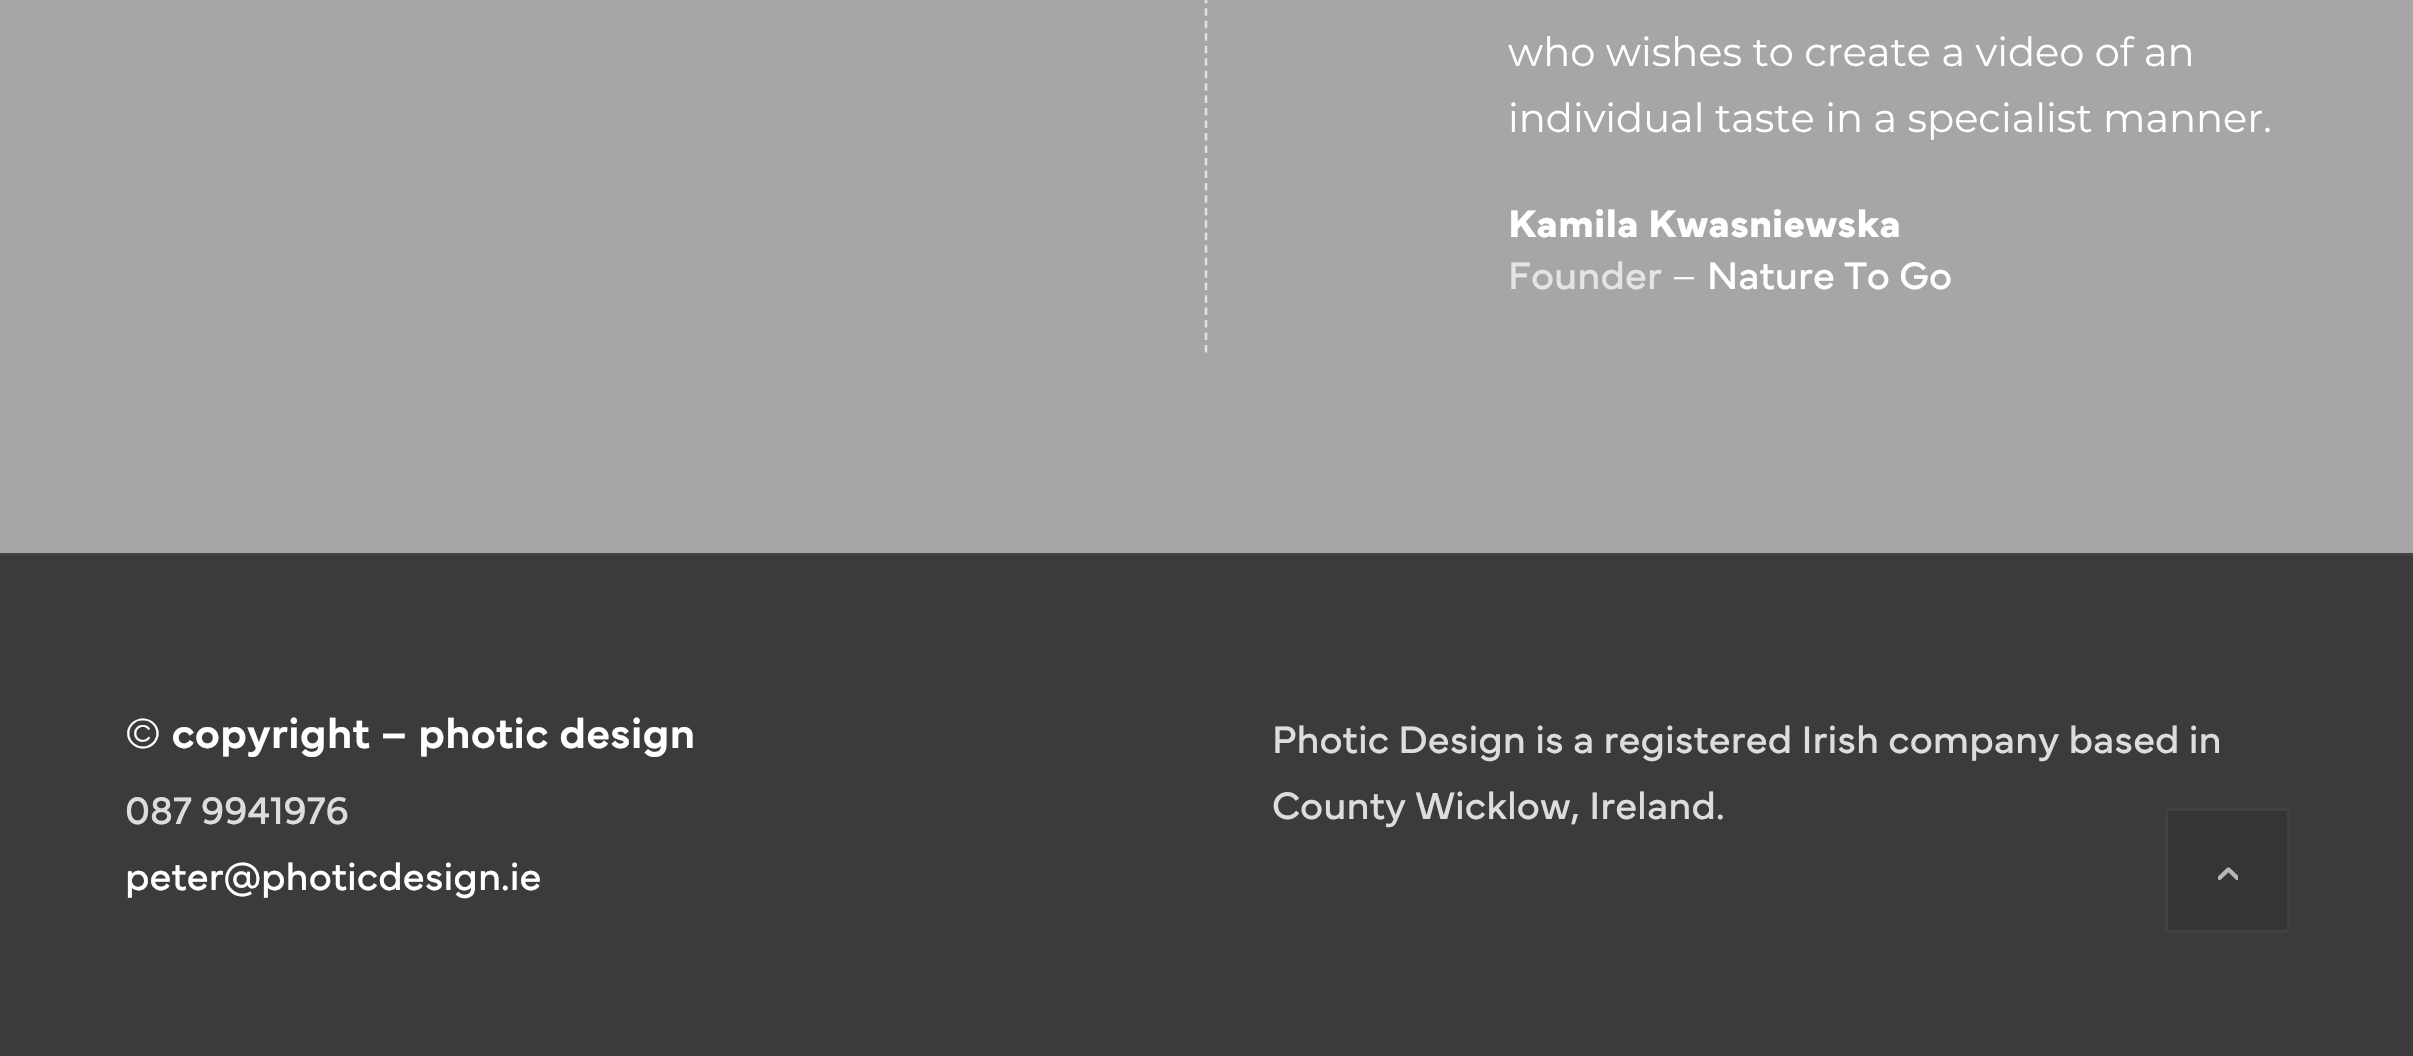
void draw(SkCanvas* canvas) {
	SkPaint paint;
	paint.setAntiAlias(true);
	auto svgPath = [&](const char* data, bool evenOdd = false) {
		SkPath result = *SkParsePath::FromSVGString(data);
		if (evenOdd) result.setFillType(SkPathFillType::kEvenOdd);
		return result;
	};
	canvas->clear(0xffa6a6a6);
	paint.setStroke(true);
	paint.setStrokeWidth(2.5);
	paint.setColor(0xffe1e1e1);
	paint.setPathEffect(SkDashPathEffect::Make({{7.5f, 4.97f}}, 0));
	canvas->drawPath(svgPath("M1206-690V352.5"), paint);
	paint.setPathEffect(nullptr);
	SkFont f1(fontMgr->matchFamilyStyle("Montserrat", SkFontStyle(100, SkFontStyle::kNormal_Width, SkFontStyle::kUpright_Slant)), 40);
	f1.setSubpixel(true);
	paint.setStroke(false);
	paint.setColor(0xffffffff);
	canvas->drawString("who wishes to create a video of an", 1508, 66, f1, paint);
	canvas->drawString("individual taste in a specialist manner.", 1508, 132, f1, paint);
	SkFont f2(fontMgr->matchFamilyStyle("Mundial", SkFontStyle::Bold()), 40);
	f2.setSubpixel(true);
	canvas->drawString("Kamila Kwasniewska", 1508, 237, f2, paint);
	SkFont f3(fontMgr->matchFamilyStyle("Mundial", SkFontStyle::Normal()), 40);
	f3.setSubpixel(true);
	paint.setColor(0xffe4e4e4);
	canvas->drawString("Founder", 1508, 289, f3, paint);
	paint.setColor(0xffffffff);
	canvas->drawString("–", 1674, 289, f1, paint);
	canvas->drawString("Nature To Go", 1707, 289, f3, paint);
	paint.setColor(0xff3b3b3b);
	canvas->drawRect(SkRect::MakeXYWH(0, 556, 2413, 500), paint);
	paint.setColor(0xff444444);
	canvas->drawRect(SkRect::MakeXYWH(0, 553, 2413, 3), paint);
	SkFont f4(fontMgr->matchFamilyStyle("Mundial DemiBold", SkFontStyle(600, SkFontStyle::kNormal_Width, SkFontStyle::kUpright_Slant)), 44);
	f4.setSubpixel(true);
	paint.setColor(0xffffffff);
	canvas->drawString("© copyright – photic design", 125, 748, f4, paint);
	paint.setColor(0xffdddddd);
	canvas->drawString("087 9941976", 125, 824, f3, paint);
	paint.setColor(0xffffffff);
	canvas->drawString("peter@photicdesign.ie", 125, 890, f3, paint);
	paint.setColor(0xffdddddd);
	canvas->drawString("Photic Design is a registered Irish company based in", 1272, 753, f3, paint);
	canvas->drawString("County Wicklow, Ireland.", 1272, 819, f3, paint);
	paint.setColor(0xff353535);
	canvas->drawRoundRect(SkRect::MakeXYWH(2166.5, 809.5, 122, 122), 3.5, 3.5, paint);
	paint.setStroke(true);
	paint.setStrokeWidth(3);
	paint.setColor(0xff414141);
	canvas->drawRoundRect(SkRect::MakeXYWH(2166.5, 809.5, 122, 122), 3.5, 3.5, paint);
	canvas->drawImageRect(SkImages::DeferredFromEncodedData(SkData::MakeFromFileName("img1.png")), SkRect::MakeXYWH(2218, 867, 20, 14), SkSamplingOptions());
}
